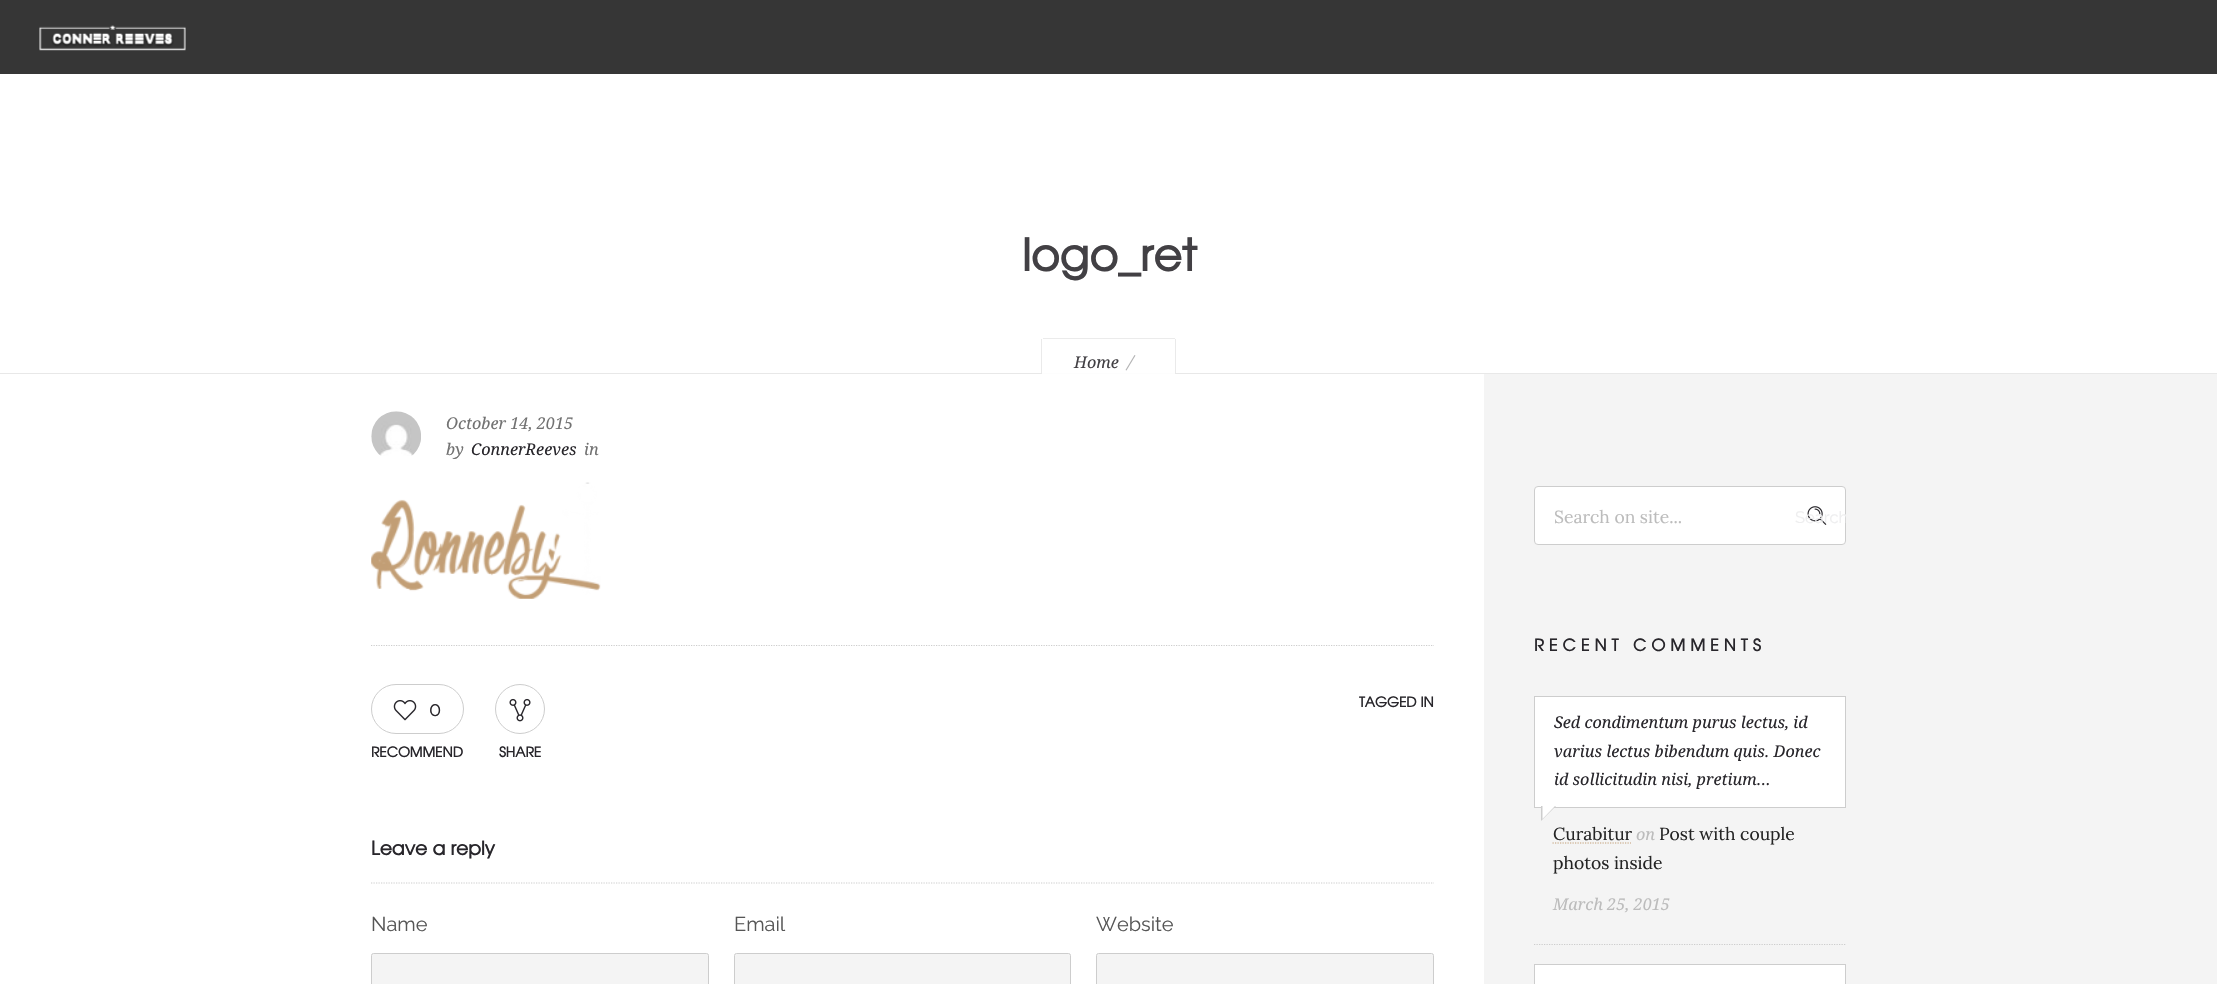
void draw(SkCanvas* canvas) {
	SkPaint paint;
	paint.setAntiAlias(true);
	auto spacedText = [&](const char* s, float x, float y, const SkFont& font, const SkPaint& ink, float letter, float word) {
		std::vector<SkGlyphID> glyphs(font.countText(s, strlen(s), SkTextEncoding::kUTF8));
		std::vector<float> xs(glyphs.size());
		font.textToGlyphs(s, strlen(s), SkTextEncoding::kUTF8, glyphs);
		font.getXPos(glyphs, xs, x);
		float extra = 0;
		for (size_t i = 0; i < glyphs.size(); i++) {
			xs[i] += extra;
			extra += letter + word * (glyphs[i] == font.unicharToGlyph(' '));
		}
		canvas->drawTextBlob(SkTextBlob::MakeFromPosHGlyphs(glyphs, xs, y, font), 0, 0, ink);
	};
	auto svgPath = [&](const char* data, bool evenOdd = false) {
		SkPath result = *SkParsePath::FromSVGString(data);
		if (evenOdd) result.setFillType(SkPathFillType::kEvenOdd);
		return result;
	};
	canvas->clear(0xffffffff);
	paint.setColor(0xff363636);
	canvas->drawRect(SkRect::MakeXYWH(0, 0, 2217, 74), paint);
	canvas->drawImageRect(SkImages::DeferredFromEncodedData(SkData::MakeFromFileName("img1.png")), SkRect::MakeXYWH(39, 25, 147, 26), SkSamplingOptions());
	SkFont f1(fontMgr->matchFamilyStyle("TeX Gyre Adventor", SkFontStyle::Bold()), 44);
	f1.setSubpixel(true);
	paint.setColor(0xff424044);
	canvas->drawString("logo_ret", 1022, 271, f1, paint);
	paint.setColor(0xffe8e8e8);
	canvas->drawRect(SkRect::MakeXYWH(0, 373, 2217, 1), paint);
	paint.setColor(0xe0ffffff);
	canvas->drawPath(svgPath("M1043.5 338H1173.5C1175 338 1176 339 1176 340.5V374H1041V340.5C1041 339 1042 338 1043.5 338Z"), paint);
	paint.setColor(0xffebebeb);
	canvas->drawRect(SkRect::MakeXYWH(1043, 338, 132, 1), paint);
	paint.setColor(0x171b1b1b);
	canvas->drawRect(SkRect::MakeXYWH(1175, 339, 1, 35), paint);
	canvas->drawRect(SkRect::MakeXYWH(1041, 339, 1, 35), paint);
	SkFont f2(fontMgr->matchFamilyStyle("Droid Serif", SkFontStyle::Italic()), 16.25);
	f2.setSubpixel(true);
	paint.setColor(0xff424044);
	canvas->drawString("Home", 1074, 368, f2, paint);
	paint.setColor(0xffb3b3b4);
	canvas->drawPath(svgPath("M1134.5 355L1135.5 355.5L1126.5 370.5L1125.5 370Z"), paint);
	canvas->drawImageRect(SkImages::DeferredFromEncodedData(SkData::MakeFromFileName("img2.png")), SkRect::MakeXYWH(371, 411, 50, 45), SkSamplingOptions());
	paint.setColor(0xff727272);
	canvas->drawString("October 14, 2015", 446, 429, f2, paint);
	canvas->drawString("by", 446, 455, f2, paint);
	paint.setColor(0xff28262b);
	canvas->drawString("ConnerReeves", 471, 455, f2, paint);
	paint.setColor(0xff727272);
	canvas->drawString("in", 584, 455, f2, paint);
	canvas->drawImageRect(SkImages::DeferredFromEncodedData(SkData::MakeFromFileName("img3.png")), SkRect::MakeXYWH(371, 482, 230, 117), SkSamplingOptions());
	paint.setStroke(true);
	paint.setStrokeWidth(1.2);
	paint.setColor(0xffcdcdcd);
	paint.setPathEffect(SkDashPathEffect::Make({{1.25f, 1.25f}}, 0));
	canvas->drawPath(svgPath("M371 645.5H1434"), paint);
	paint.setPathEffect(nullptr);
	SkFont f3(fontMgr->matchFamilyStyle("TeX Gyre Adventor", SkFontStyle::Bold()), 13.75);
	f3.setSubpixel(true);
	paint.setStroke(false);
	paint.setColor(0xff28262b);
	canvas->drawString("TAGGED IN", 1359, 707, f3, paint);
	paint.setStroke(true);
	paint.setStrokeWidth(1);
	paint.setColor(0xffcdcdcd);
	canvas->drawRoundRect(SkRect::MakeXYWH(371.5, 684.5, 92, 49), 24.5, 24.5, paint);
	canvas->drawImageRect(SkImages::DeferredFromEncodedData(SkData::MakeFromFileName("img4.png")), SkRect::MakeXYWH(393, 700, 24, 21), SkSamplingOptions());
	SkFont f4(fontMgr->matchFamilyStyle("Raleway", SkFontStyle::Normal()), 20);
	f4.setSubpixel(true);
	paint.setStroke(false);
	paint.setColor(0xff28262b);
	canvas->drawString("0", 429, 716, f4, paint);
	canvas->drawString("RECOMMEND", 371, 757, f3, paint);
	paint.setStroke(true);
	paint.setColor(0xffcdcdcd);
	canvas->drawCircle(520, 709, 24.5, paint);
	canvas->drawImageRect(SkImages::DeferredFromEncodedData(SkData::MakeFromFileName("img5.png")), SkRect::MakeXYWH(509, 698, 22, 24), SkSamplingOptions());
	paint.setStroke(false);
	paint.setColor(0xff28262b);
	canvas->drawString("SHARE", 499, 757, f3, paint);
	paint.setStroke(true);
	paint.setStrokeWidth(1.2);
	paint.setColor(0xffcdcdcd);
	paint.setPathEffect(SkDashPathEffect::Make({{1.25f, 1.25f}}, 0));
	canvas->drawPath(svgPath("M371 883H1434"), paint);
	paint.setPathEffect(nullptr);
	SkFont f5(fontMgr->matchFamilyStyle("TeX Gyre Adventor", SkFontStyle::Bold()), 18.75);
	f5.setSubpixel(true);
	paint.setStroke(false);
	paint.setColor(0xff28262b);
	canvas->drawString("Leave a reply", 371, 855, f5, paint);
	paint.setColor(0xff565656);
	canvas->drawString("Name", 371, 931, f4, paint);
	paint.setColor(0xfff4f4f4);
	canvas->drawRoundRect(SkRect::MakeXYWH(371.5, 953.5, 337, 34), 2, 2, paint);
	paint.setStroke(true);
	paint.setStrokeWidth(1);
	paint.setColor(0xffcdcdcd);
	canvas->drawRoundRect(SkRect::MakeXYWH(371.5, 953.5, 337, 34), 2, 2, paint);
	paint.setStroke(false);
	paint.setColor(0xff565656);
	canvas->drawString("Email", 734, 931, f4, paint);
	paint.setColor(0xfff4f4f4);
	canvas->drawRoundRect(SkRect::MakeXYWH(734.5, 953.5, 336, 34), 2, 2, paint);
	paint.setStroke(true);
	paint.setColor(0xffcdcdcd);
	canvas->drawRoundRect(SkRect::MakeXYWH(734.5, 953.5, 336, 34), 2, 2, paint);
	paint.setStroke(false);
	paint.setColor(0xff565656);
	canvas->drawString("Website", 1096, 931, f4, paint);
	paint.setColor(0xfff4f4f4);
	canvas->drawRoundRect(SkRect::MakeXYWH(1096.5, 953.5, 337, 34), 2, 2, paint);
	paint.setStroke(true);
	paint.setColor(0xffcdcdcd);
	canvas->drawRoundRect(SkRect::MakeXYWH(1096.5, 953.5, 337, 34), 2, 2, paint);
	paint.setStroke(false);
	paint.setColor(0xfff4f4f4);
	canvas->drawRect(SkRect::MakeXYWH(1484, 374, 733, 610), paint);
	paint.setColor(0xffffffff);
	canvas->drawRoundRect(SkRect::MakeXYWH(1534.5, 486.5, 311, 58), 3.5, 3.5, paint);
	paint.setStroke(true);
	paint.setColor(0xffcdcdcd);
	canvas->drawRoundRect(SkRect::MakeXYWH(1534.5, 486.5, 311, 58), 3.5, 3.5, paint);
	SkFont f6(fontMgr->matchFamilyStyle("Lora", SkFontStyle::Normal()), 17.5);
	f6.setSubpixel(true);
	paint.setStroke(false);
	paint.setColor(0xffbcbcbc);
	canvas->drawString("Search on site...", 1554, 523, f6, paint);
	canvas->drawImageRect(SkImages::DeferredFromEncodedData(SkData::MakeFromFileName("img6.png")), SkRect::MakeXYWH(1807, 506, 20, 19), SkSamplingOptions());
	canvas->save();
	canvas->clipRect(SkRect::MakeXYWH(1788, 486, 58, 59));
	SkFont f7(fontMgr->matchFamilyStyle("Raleway", SkFontStyle::Normal()), 16.5);
	f7.setSubpixel(true);
	paint.setColor(0xffeeeeef);
	canvas->drawString("Search", 1795, 523, f7, paint);
	canvas->restore();
	SkFont f8(fontMgr->matchFamilyStyle("TeX Gyre Adventor", SkFontStyle::Bold()), 16.25);
	f8.setSubpixel(true);
	paint.setColor(0xff28262b);
	spacedText("RECENT COMMENTS", 1534, 651, f8, paint, 5, 0);
	paint.setStroke(true);
	paint.setStrokeWidth(1.2);
	paint.setColor(0xffcdcdcd);
	paint.setPathEffect(SkDashPathEffect::Make({{1.25f, 1.25f}}, 0));
	canvas->drawPath(svgPath("M1534 944.5H1846"), paint);
	paint.setPathEffect(nullptr);
	paint.setStroke(false);
	paint.setColor(0xffffffff);
	canvas->drawRect(SkRect::MakeXYWH(1534.5, 696.5, 311, 111), paint);
	paint.setStroke(true);
	paint.setStrokeWidth(1);
	paint.setColor(0xffcdcdcd);
	canvas->drawRect(SkRect::MakeXYWH(1534.5, 696.5, 311, 111), paint);
	paint.setStroke(false);
	paint.setColor(0xff28262b);
	canvas->drawString("Sed condimentum purus lectus, id", 1554, 728, f2, paint);
	canvas->drawString("varius lectus bibendum quis. Donec", 1554, 757, f2, paint);
	canvas->drawString("id sollicitudin nisi, pretium...", 1554, 785, f2, paint);
	paint.setColor(0xffcdcdcd);
	canvas->drawPath(svgPath("M1541 806H1556L1541 821Z"), paint);
	paint.setColor(0xffffffff);
	canvas->drawPath(svgPath("M1542.5 806H1555L1542.5 819Z"), paint);
	paint.setColor(0xff242424);
	canvas->drawString("Curabitur", 1553, 840, f6, paint);
	paint.setStroke(true);
	paint.setStrokeWidth(1.2);
	paint.setColor(0xffc39f76);
	paint.setPathEffect(SkDashPathEffect::Make({{1.25f, 1.25f}}, 0));
	canvas->drawPath(svgPath("M1552.5 843H1631"), paint);
	paint.setPathEffect(nullptr);
	paint.setStroke(false);
	paint.setColor(0xffbcbcbc);
	canvas->drawString("on", 1636, 840, f2, paint);
	paint.setColor(0xff242424);
	canvas->drawString("Post with couple", 1659, 840, f6, paint);
	canvas->drawString("photos inside", 1553, 869, f6, paint);
	paint.setColor(0xffbcbcbc);
	canvas->drawString("March 25, 2015", 1553, 910, f2, paint);
	paint.setColor(0xffffffff);
	canvas->drawRect(SkRect::MakeXYWH(1534.5, 964.5, 311, 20), paint);
	paint.setStroke(true);
	paint.setStrokeWidth(1);
	paint.setColor(0xffcdcdcd);
	canvas->drawRect(SkRect::MakeXYWH(1534.5, 964.5, 311, 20), paint);
}
